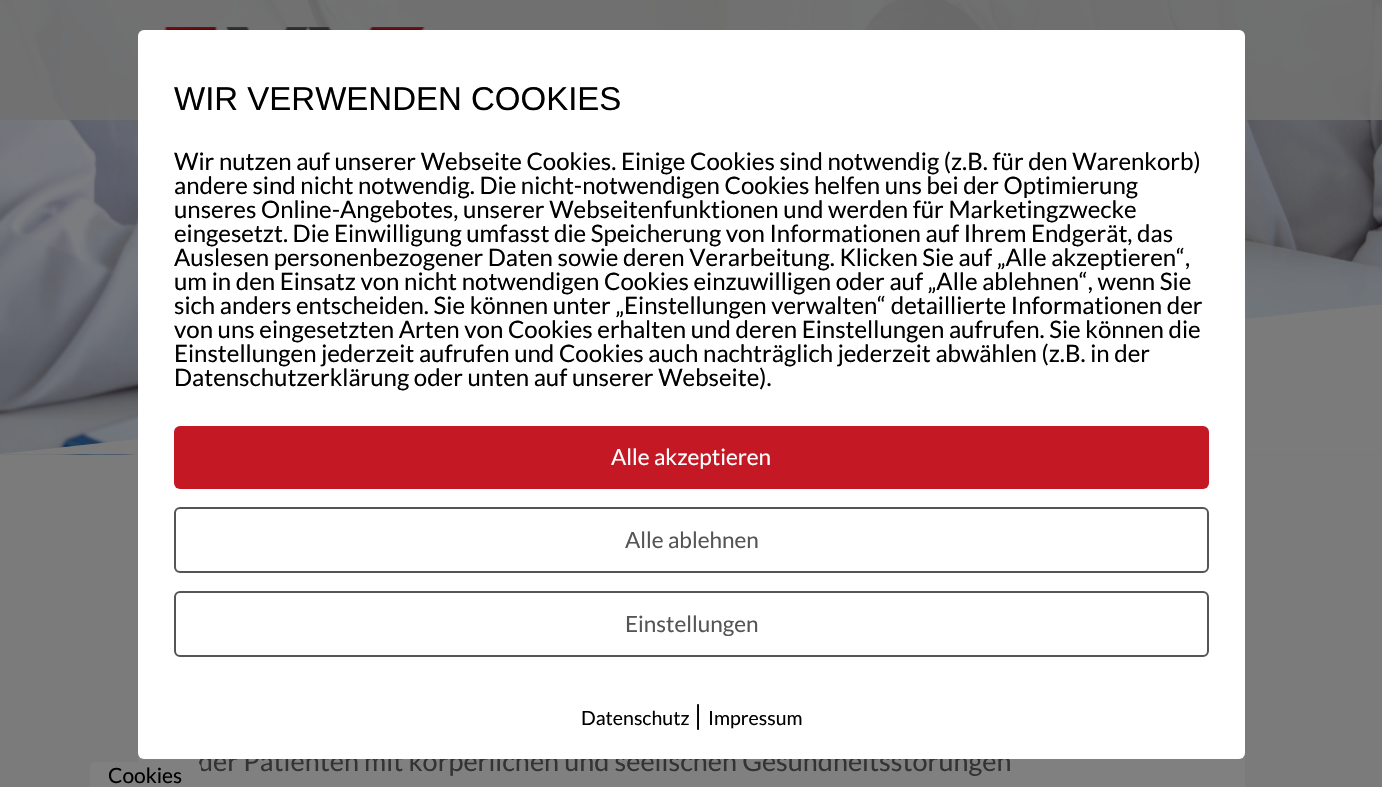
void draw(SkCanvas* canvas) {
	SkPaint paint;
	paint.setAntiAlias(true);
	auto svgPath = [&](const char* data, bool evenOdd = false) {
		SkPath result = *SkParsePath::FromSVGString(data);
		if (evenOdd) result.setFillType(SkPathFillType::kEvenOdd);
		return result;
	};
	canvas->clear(0xff7b7b7b);
	canvas->drawImageRect(SkImages::DeferredFromEncodedData(SkData::MakeFromFileName("img2.png")), SkRect::MakeXYWH(0, 0, 1382, 455), SkSamplingOptions());
	paint.setColor(0xe6707070);
	canvas->drawRect(SkRect::MakeXYWH(0, 0, 1382, 120), paint);
	canvas->save();
	canvas->clipRect(SkRect::MakeXYWH(0, 305, 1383, 150));
	paint.setColor(0xff7b7b7b);
	canvas->drawPath(svgPath("M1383 304V454H0Z"), paint);
	canvas->restore();
	paint.setColor(0xff808080);
	canvas->drawRect(SkRect::MakeXYWH(138, 753, 1107, 34), paint);
	SkFont f1(fontMgr->matchFamilyStyle("Lato", SkFontStyle::Normal()), 27);
	f1.setSubpixel(true);
	paint.setColor(0xff333333);
	canvas->drawString("der Patienten mit körperlichen und seelischen Gesundheitsstörungen", 198, 771, f1, paint);
	paint.setColor(0xffffffff);
	canvas->drawRoundRect(SkRect::MakeXYWH(138, 30, 1107, 729), 6, 6, paint);
	SkFont f2(fontMgr->matchFamilyStyle("Liberation Sans", SkFontStyle::Normal()), 33);
	f2.setSubpixel(true);
	paint.setColor(0xff000000);
	canvas->drawString("WIR VERWENDEN COOKIES", 174, 110, f2, paint);
	SkFont f3(fontMgr->matchFamilyStyle("Lato", SkFontStyle::Normal()), 24);
	f3.setSubpixel(true);
	canvas->drawString("Wir nutzen auf unserer Webseite Cookies. Einige Cookies sind notwendig (z.B. für den Warenkorb)", 174, 170, f3, paint);
	canvas->drawString("andere sind nicht notwendig. Die nicht-notwendigen Cookies helfen uns bei der Optimierung", 174, 194, f3, paint);
	canvas->drawString("unseres Online-Angebotes, unserer Webseitenfunktionen und werden für Marketingzwecke", 174, 218, f3, paint);
	canvas->drawString("eingesetzt. Die Einwilligung umfasst die Speicherung von Informationen auf Ihrem Endgerät, das", 174, 242, f3, paint);
	canvas->drawString("Auslesen personenbezogener Daten sowie deren Verarbeitung. Klicken Sie auf „Alle akzeptieren“,", 174, 266, f3, paint);
	canvas->drawString("um in den Einsatz von nicht notwendigen Cookies einzuwilligen oder auf „Alle ablehnen“, wenn Sie", 174, 290, f3, paint);
	canvas->drawString("sich anders entscheiden. Sie können unter „Einstellungen verwalten“ detaillierte Informationen der", 174, 314, f3, paint);
	canvas->drawString("von uns eingesetzten Arten von Cookies erhalten und deren Einstellungen aufrufen. Sie können die", 174, 338, f3, paint);
	canvas->drawString("Einstellungen jederzeit aufrufen und Cookies auch nachträglich jederzeit abwählen (z.B. in der", 174, 362, f3, paint);
	canvas->drawString("Datenschutzerklärung oder unten auf unserer Webseite).", 174, 386, f3, paint);
	paint.setColor(0xffc41925);
	canvas->drawRoundRect(SkRect::MakeXYWH(174, 426, 1035, 63), 6, 6, paint);
	SkFont f4(fontMgr->matchFamilyStyle("Lato", SkFontStyle::Normal()), 22.5);
	f4.setSubpixel(true);
	paint.setColor(0xffffffff);
	canvas->drawString("Alle akzeptieren", 611, 465, f4, paint);
	paint.setStroke(true);
	paint.setStrokeWidth(2);
	paint.setColor(0xff555555);
	canvas->drawRoundRect(SkRect::MakeXYWH(175, 508, 1033, 64), 5, 5, paint);
	paint.setStroke(false);
	canvas->drawString("Alle ablehnen", 625, 548, f4, paint);
	paint.setStroke(true);
	canvas->drawRoundRect(SkRect::MakeXYWH(175, 592, 1033, 64), 5, 5, paint);
	paint.setStroke(false);
	canvas->drawString("Einstellungen", 625, 632, f4, paint);
	SkFont f5(fontMgr->matchFamilyStyle("Lato", SkFontStyle::Normal()), 19.5);
	f5.setSubpixel(true);
	paint.setColor(0xff000000);
	canvas->drawString("Datenschutz", 581, 725, f5, paint);
	canvas->drawString("|", 694, 725, f1, paint);
	canvas->drawString("Impressum", 708, 725, f5, paint);
	paint.setColor(0xff808080);
	canvas->drawPath(svgPath("M96 762H195C198.5 762 201 764.5 201 768V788H90V768C90 764.5 92.5 762 96 762Z"), paint);
	SkFont f6(fontMgr->matchFamilyStyle("Lato", SkFontStyle::Normal()), 21);
	f6.setSubpixel(true);
	paint.setColor(0xff000000);
	canvas->drawString("Cookies", 108, 783, f6, paint);
	canvas->drawImageRect(SkImages::DeferredFromEncodedData(SkData::MakeFromFileName("img1.png")), SkRect::MakeXYWH(164, 27, 261, 3), SkSamplingOptions());
}
